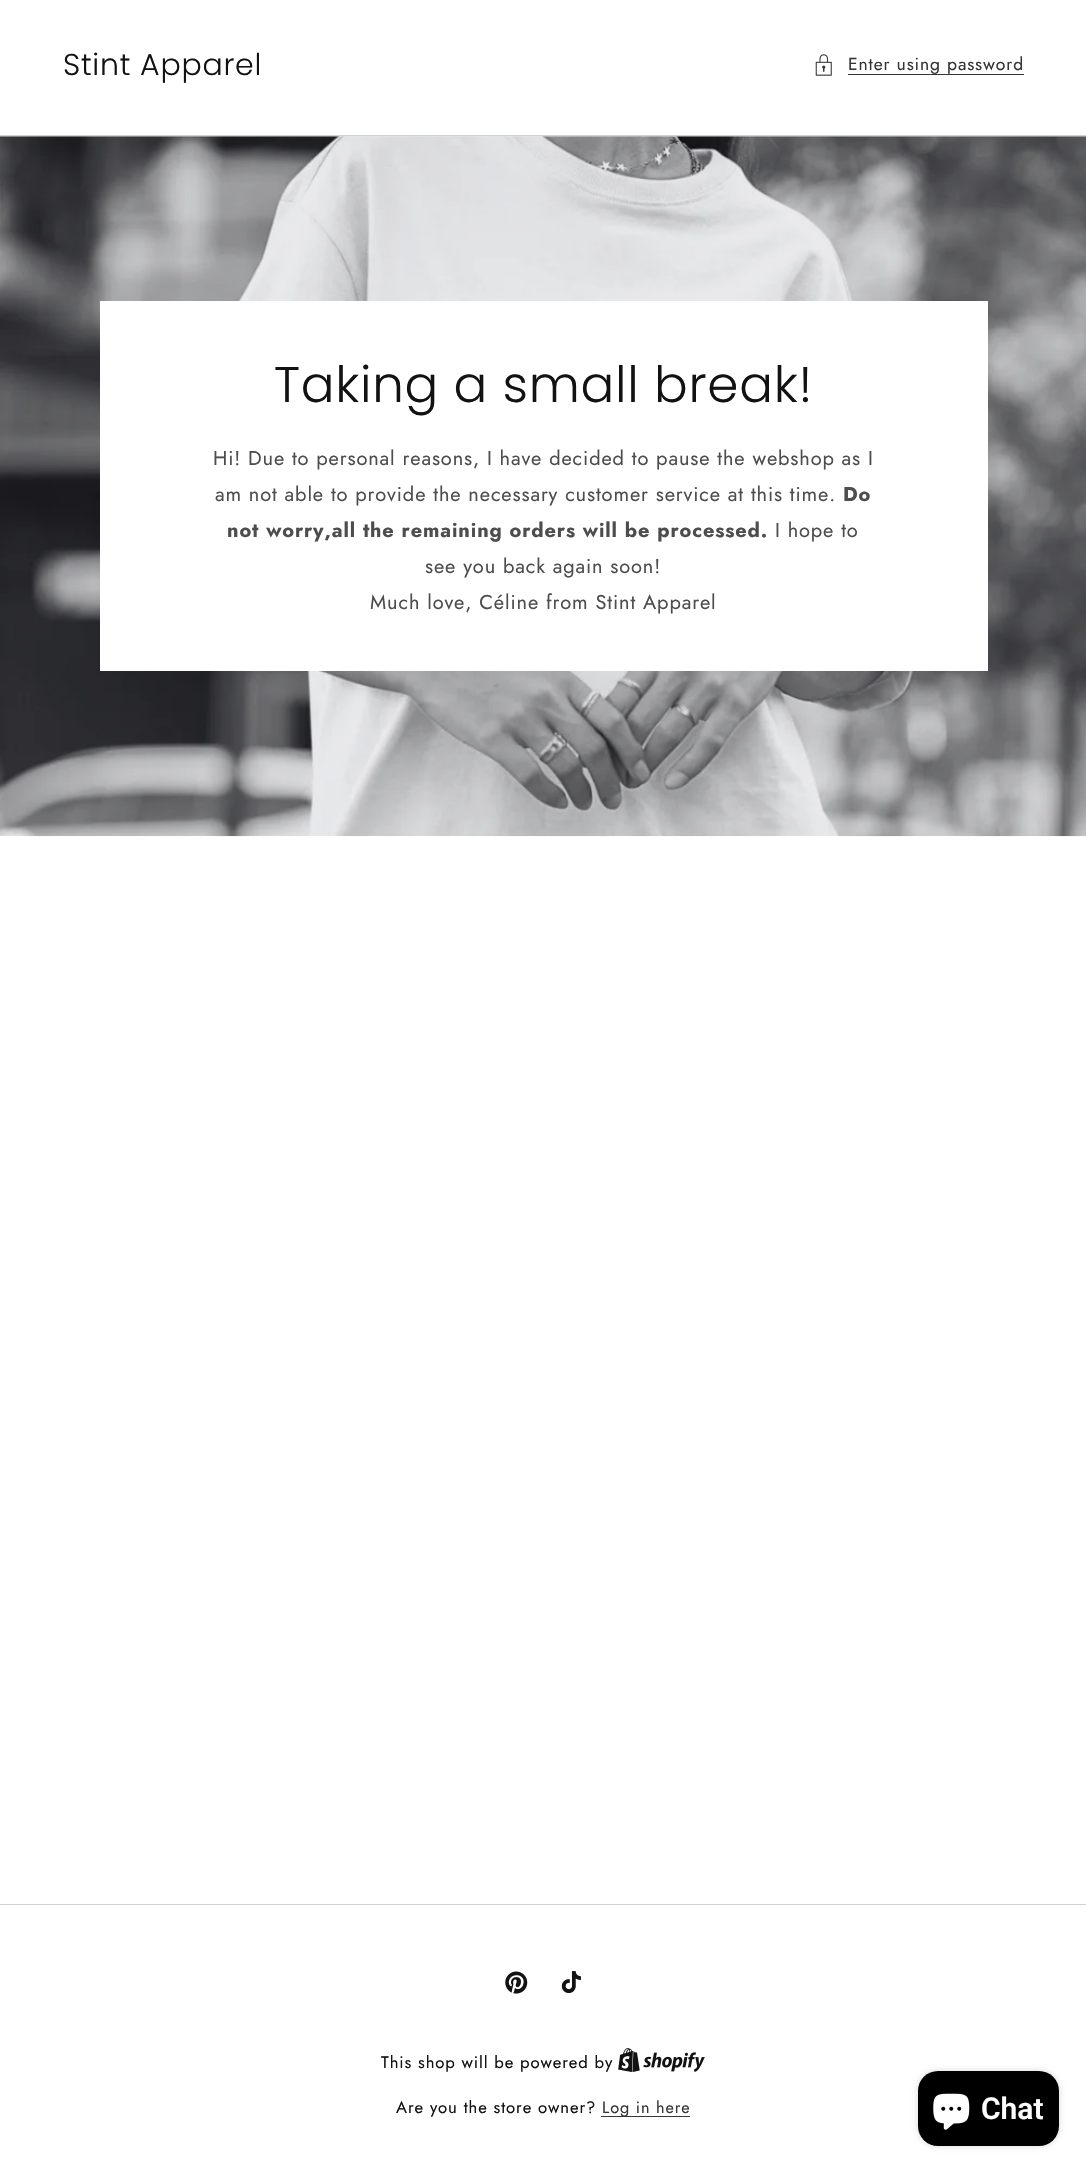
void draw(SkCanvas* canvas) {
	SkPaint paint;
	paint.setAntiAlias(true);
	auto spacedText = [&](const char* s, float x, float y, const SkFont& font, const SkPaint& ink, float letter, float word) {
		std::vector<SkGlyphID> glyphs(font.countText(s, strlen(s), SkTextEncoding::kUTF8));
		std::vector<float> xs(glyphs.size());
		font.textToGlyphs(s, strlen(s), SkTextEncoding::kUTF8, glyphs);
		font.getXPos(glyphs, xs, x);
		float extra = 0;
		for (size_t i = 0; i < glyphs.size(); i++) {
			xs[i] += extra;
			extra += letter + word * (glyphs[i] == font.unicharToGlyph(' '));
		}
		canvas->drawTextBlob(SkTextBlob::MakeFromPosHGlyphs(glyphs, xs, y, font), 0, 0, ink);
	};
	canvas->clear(0xffffffff);
	SkFont f1(fontMgr->matchFamilyStyle("Poppins", SkFontStyle(300, SkFontStyle::kNormal_Width, SkFontStyle::kUpright_Slant)), 30);
	f1.setSubpixel(true);
	paint.setColor(0xff121212);
	spacedText("Stint Apparel", 63, 75, f1, paint, 0.75, 0);
	canvas->drawImageRect(SkImages::DeferredFromEncodedData(SkData::MakeFromFileName("img1.png")), SkRect::MakeXYWH(815, 54, 17, 22), SkSamplingOptions());
	SkFont f2(fontMgr->matchFamilyStyle("Jost", SkFontStyle::Normal()), 17.5);
	f2.setSubpixel(true);
	paint.setColor(0xff353535);
	spacedText("Enter using password", 848, 70, f2, paint, 0.88, 0);
	paint.setColor(0xff363636);
	canvas->drawRect(SkRect::MakeXYWH(848, 74, 176, 1), paint);
	paint.setColor(0xffd0d0d0);
	canvas->drawRect(SkRect::MakeXYWH(0, 135, 1086, 1), paint);
	paint.setColor(0xffe8e8e8);
	canvas->drawRect(SkRect::MakeXYWH(0, 136, 1086, 1), paint);
	canvas->drawImageRect(SkImages::DeferredFromEncodedData(SkData::MakeFromFileName("img2.png")), SkRect::MakeXYWH(0, 136, 1086, 701), SkSamplingOptions());
	paint.setColor(0xffffffff);
	canvas->drawRect(SkRect::MakeXYWH(100, 301, 888, 370), paint);
	SkFont f3(fontMgr->matchFamilyStyle("Poppins", SkFontStyle(300, SkFontStyle::kNormal_Width, SkFontStyle::kUpright_Slant)), 50);
	f3.setSubpixel(true);
	paint.setColor(0xff121212);
	spacedText("Taking a small break!", 274, 402, f3, paint, 0.75, 0);
	SkFont f4(fontMgr->matchFamilyStyle("Jost", SkFontStyle::Normal()), 20);
	f4.setSubpixel(true);
	paint.setColor(0xff4d4d4d);
	spacedText("Hi! Due to personal reasons, I have decided to pause the webshop as I", 213, 465, f4, paint, 0.88, 0);
	spacedText("am not able to provide the necessary customer service at this time.", 215, 501, f4, paint, 0.88, 0);
	SkFont f5(fontMgr->matchFamilyStyle("Jost", SkFontStyle::Bold()), 20);
	f5.setSubpixel(true);
	spacedText("Do", 843, 501, f5, paint, 0.88, 0);
	spacedText("not worry,all the remaining orders will be processed.", 227, 537, f5, paint, 0.88, 0);
	spacedText("I hope to", 775, 537, f4, paint, 0.88, 0);
	spacedText("see you back again soon!", 425, 573, f4, paint, 0.88, 0);
	spacedText("Much love, Céline from Stint Apparel", 370, 609, f4, paint, 0.88, 0);
	paint.setColor(0xffd0d0d0);
	canvas->drawRect(SkRect::MakeXYWH(0, 1904, 1086, 1), paint);
	canvas->drawImageRect(SkImages::DeferredFromEncodedData(SkData::MakeFromFileName("img3.png")), SkRect::MakeXYWH(505, 1971, 23, 23), SkSamplingOptions());
	canvas->drawImageRect(SkImages::DeferredFromEncodedData(SkData::MakeFromFileName("img4.png")), SkRect::MakeXYWH(561, 1971, 20, 23), SkSamplingOptions());
	SkFont f6(fontMgr->matchFamilyStyle("Jost", SkFontStyle::Normal()), 16.7);
	f6.setSubpixel(true);
	paint.setColor(0xff121212);
	spacedText("This shop will be powered by", 381, 2068, f6, paint, 0.88, 0);
	canvas->drawImageRect(SkImages::DeferredFromEncodedData(SkData::MakeFromFileName("img5.png")), SkRect::MakeXYWH(618, 2048, 87, 25), SkSamplingOptions());
	spacedText("Are you the store owner?", 396, 2113, f6, paint, 0.88, 0);
	paint.setColor(0xff363636);
	canvas->drawRect(SkRect::MakeXYWH(601, 2116, 89, 1), paint);
	SkFont f7(fontMgr->matchFamilyStyle("Jost", SkFontStyle::Normal()), 16.25);
	f7.setSubpixel(true);
	paint.setColor(0xff353535);
	spacedText("Log in here", 602, 2113, f7, paint, 0.88, 0);
	paint.setColor(0x26000000);
	paint.setMaskFilter(SkMaskFilter::MakeBlur(kNormal_SkBlurStyle, 3));
	canvas->drawRoundRect(SkRect::MakeXYWH(918, 2071, 141, 75), 20, 20, paint);
	paint.setMaskFilter(nullptr);
	paint.setColor(0xff000000);
	canvas->drawRoundRect(SkRect::MakeXYWH(918, 2071, 141, 75), 20, 20, paint);
	canvas->drawImageRect(SkImages::DeferredFromEncodedData(SkData::MakeFromFileName("img6.png")), SkRect::MakeXYWH(933, 2093, 37, 37), SkSamplingOptions());
	SkFont f8(fontMgr->matchFamilyStyle("Roboto", SkFontStyle(600, SkFontStyle::kNormal_Width, SkFontStyle::kUpright_Slant)), 30);
	f8.setSubpixel(true);
	paint.setColor(0xffffffff);
	canvas->drawString("Chat", 981, 2119, f8, paint);
}
